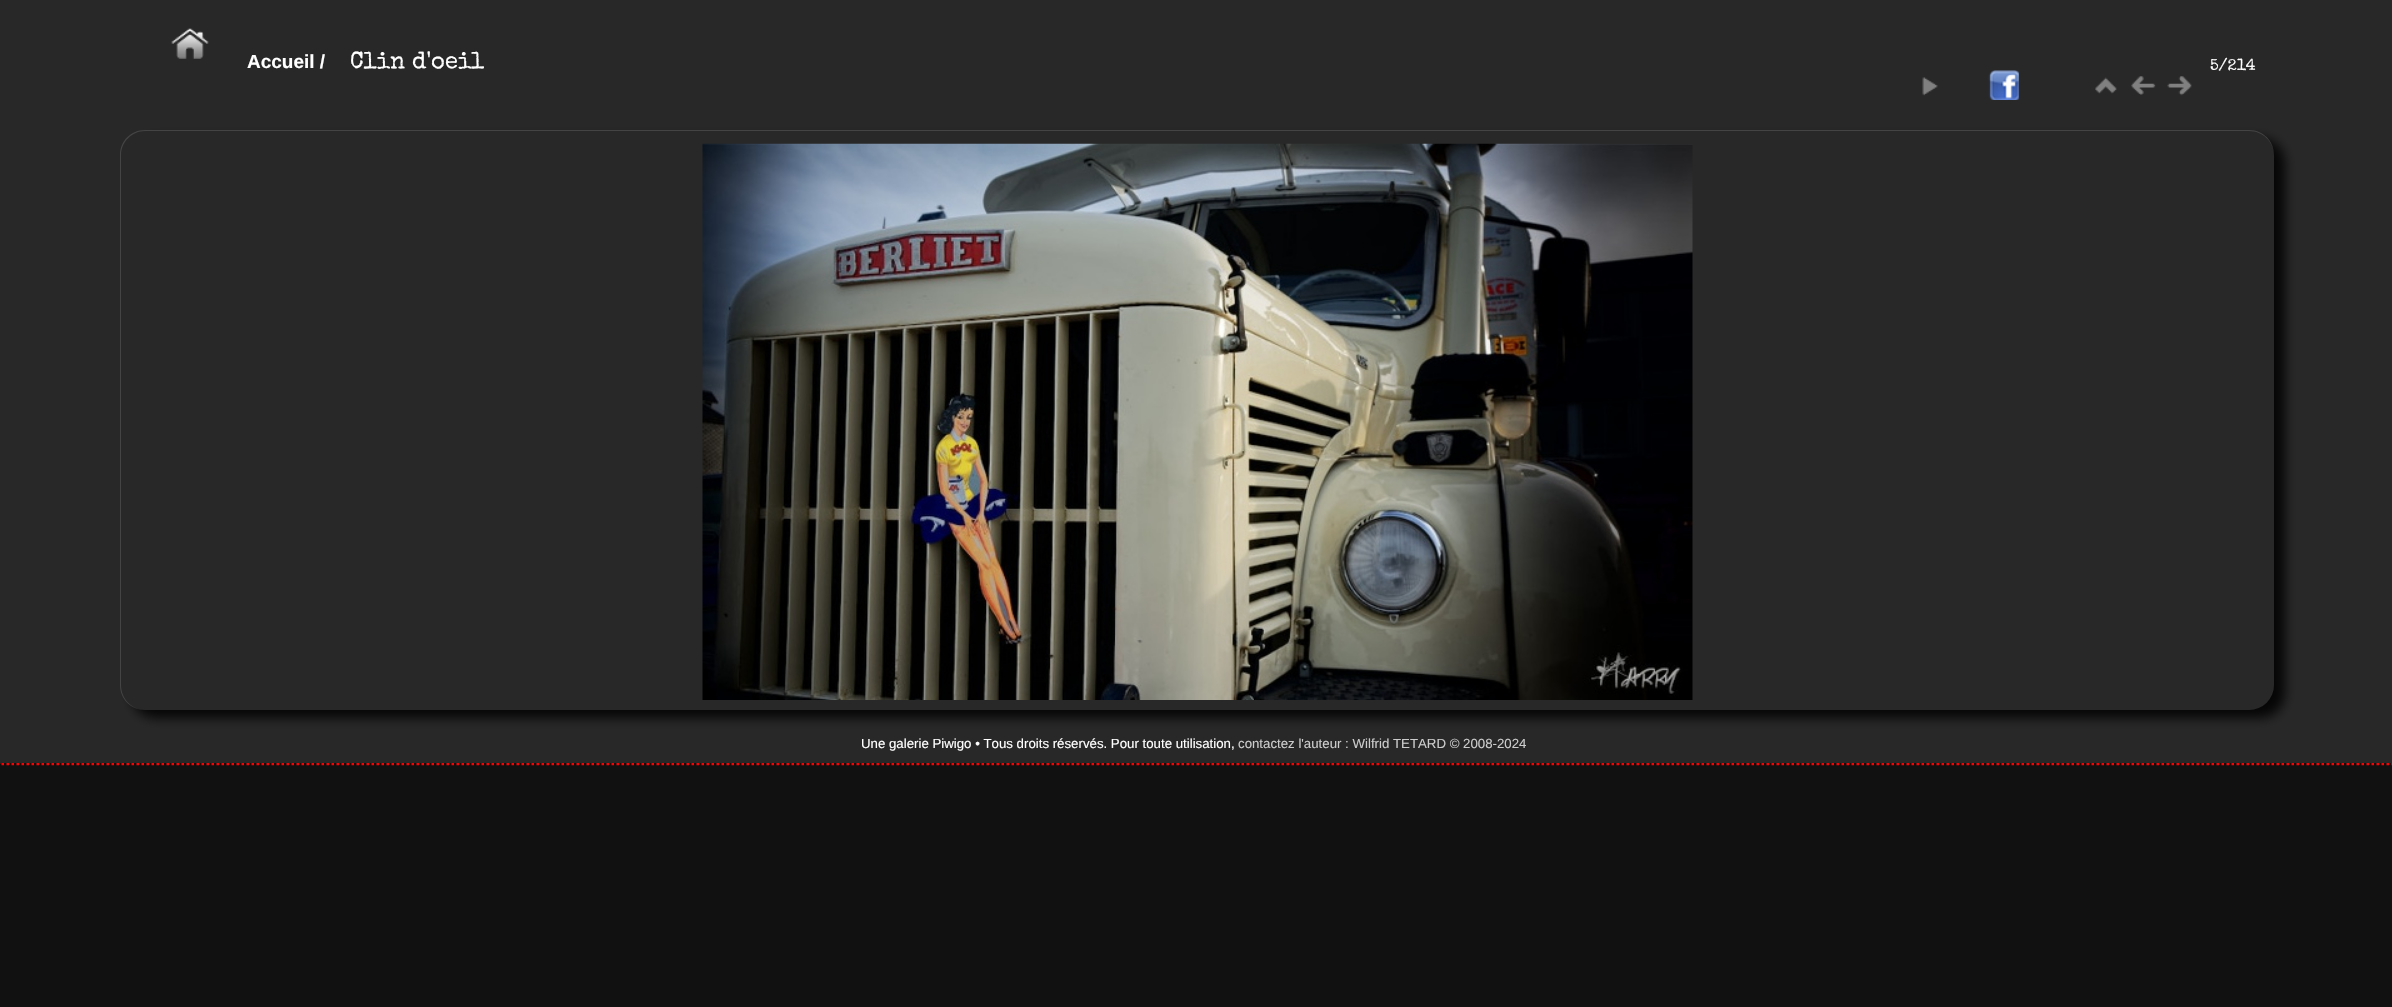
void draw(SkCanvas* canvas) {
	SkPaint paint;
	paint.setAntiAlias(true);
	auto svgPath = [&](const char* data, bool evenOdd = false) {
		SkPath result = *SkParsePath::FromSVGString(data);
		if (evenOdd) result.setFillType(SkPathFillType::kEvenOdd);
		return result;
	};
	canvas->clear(0xff111111);
	paint.setStroke(true);
	paint.setStrokeWidth(2.5);
	paint.setColor(0xffff0000);
	paint.setPathEffect(SkDashPathEffect::Make({{2.5f, 2.5f}}, 0));
	canvas->drawPath(svgPath("M-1-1H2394V764H-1Z"), paint);
	paint.setPathEffect(nullptr);
	paint.setStroke(false);
	paint.setColor(0xff282828);
	canvas->drawRect(SkRect::MakeXYWH(0, 0, 2392, 763), paint);
	canvas->drawImageRect(SkImages::DeferredFromEncodedData(SkData::MakeFromFileName("img1.png")), SkRect::MakeXYWH(171, 28, 38, 31), SkSamplingOptions());
	SkFont f1(fontMgr->matchFamilyStyle("Liberation Sans", SkFontStyle::Bold()), 19);
	f1.setSubpixel(true);
	paint.setColor(0xffffffff);
	canvas->drawString("Accueil /", 247, 68, f1, paint);
	SkFont f2(fontMgr->matchFamilyStyle("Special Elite", SkFontStyle::Normal()), 23.75);
	f2.setSubpixel(true);
	canvas->drawString("Clin d'oeil", 350, 68, f2, paint);
	SkFont f3(fontMgr->matchFamilyStyle("Special Elite", SkFontStyle::Normal()), 16);
	f3.setSubpixel(true);
	canvas->drawString("5/214", 2210, 70, f3, paint);
	canvas->drawImageRect(SkImages::DeferredFromEncodedData(SkData::MakeFromFileName("img2.png")), SkRect::MakeXYWH(1922, 77, 16, 19), SkSamplingOptions());
	canvas->drawImageRect(SkImages::DeferredFromEncodedData(SkData::MakeFromFileName("img3.png")), SkRect::MakeXYWH(1988, 70, 31, 30), SkSamplingOptions());
	canvas->drawImageRect(SkImages::DeferredFromEncodedData(SkData::MakeFromFileName("img4.png")), SkRect::MakeXYWH(2095, 77, 22, 17), SkSamplingOptions());
	canvas->drawImageRect(SkImages::DeferredFromEncodedData(SkData::MakeFromFileName("img5.png")), SkRect::MakeXYWH(2131, 76, 25, 19), SkSamplingOptions());
	canvas->drawImageRect(SkImages::DeferredFromEncodedData(SkData::MakeFromFileName("img6.png")), SkRect::MakeXYWH(2167, 76, 25, 20), SkSamplingOptions());
	paint.setColor(0xff050505);
	paint.setMaskFilter(SkMaskFilter::MakeBlur(kNormal_SkBlurStyle, 6));
	canvas->drawRoundRect(SkRect::MakeXYWH(131, 138, 2154, 580), 25, 25, paint);
	paint.setMaskFilter(nullptr);
	paint.setColor(0xff282828);
	canvas->drawRoundRect(SkRect::MakeXYWH(120, 130, 2154, 580), 25, 25, paint);
	paint.setColor(0xff444444);
	canvas->drawPath(svgPath("M145 130H2249C2263 130 2274 141 2274 155V685C2274 699 2263 710 2249 710H145C131 710 120 699 120 685V155C120 141 131 130 145 130ZM145 131H2249C2263 131 2274 142 2274 155V685C2274 699 2263 710 2249 710H145C132 710 121 699 121 685V155C121 142 132 131 145 131Z", true), paint);
	canvas->drawImageRect(SkImages::DeferredFromEncodedData(SkData::MakeFromFileName("img7.png")), SkRect::MakeXYWH(702, 143, 991, 557), SkSamplingOptions());
	SkFont f4(fontMgr->matchFamilyStyle("Liberation Sans", SkFontStyle::Normal()), 13.25);
	f4.setSubpixel(true);
	paint.setColor(0xffffffff);
	canvas->drawString("Une galerie Piwigo • Tous droits réservés. Pour toute utilisation,", 861, 748, f4, paint);
	paint.setColor(0xffcccccc);
	canvas->drawString("contactez l'auteur : Wilfrid TETARD © 2008-2024", 1238, 748, f4, paint);
}
